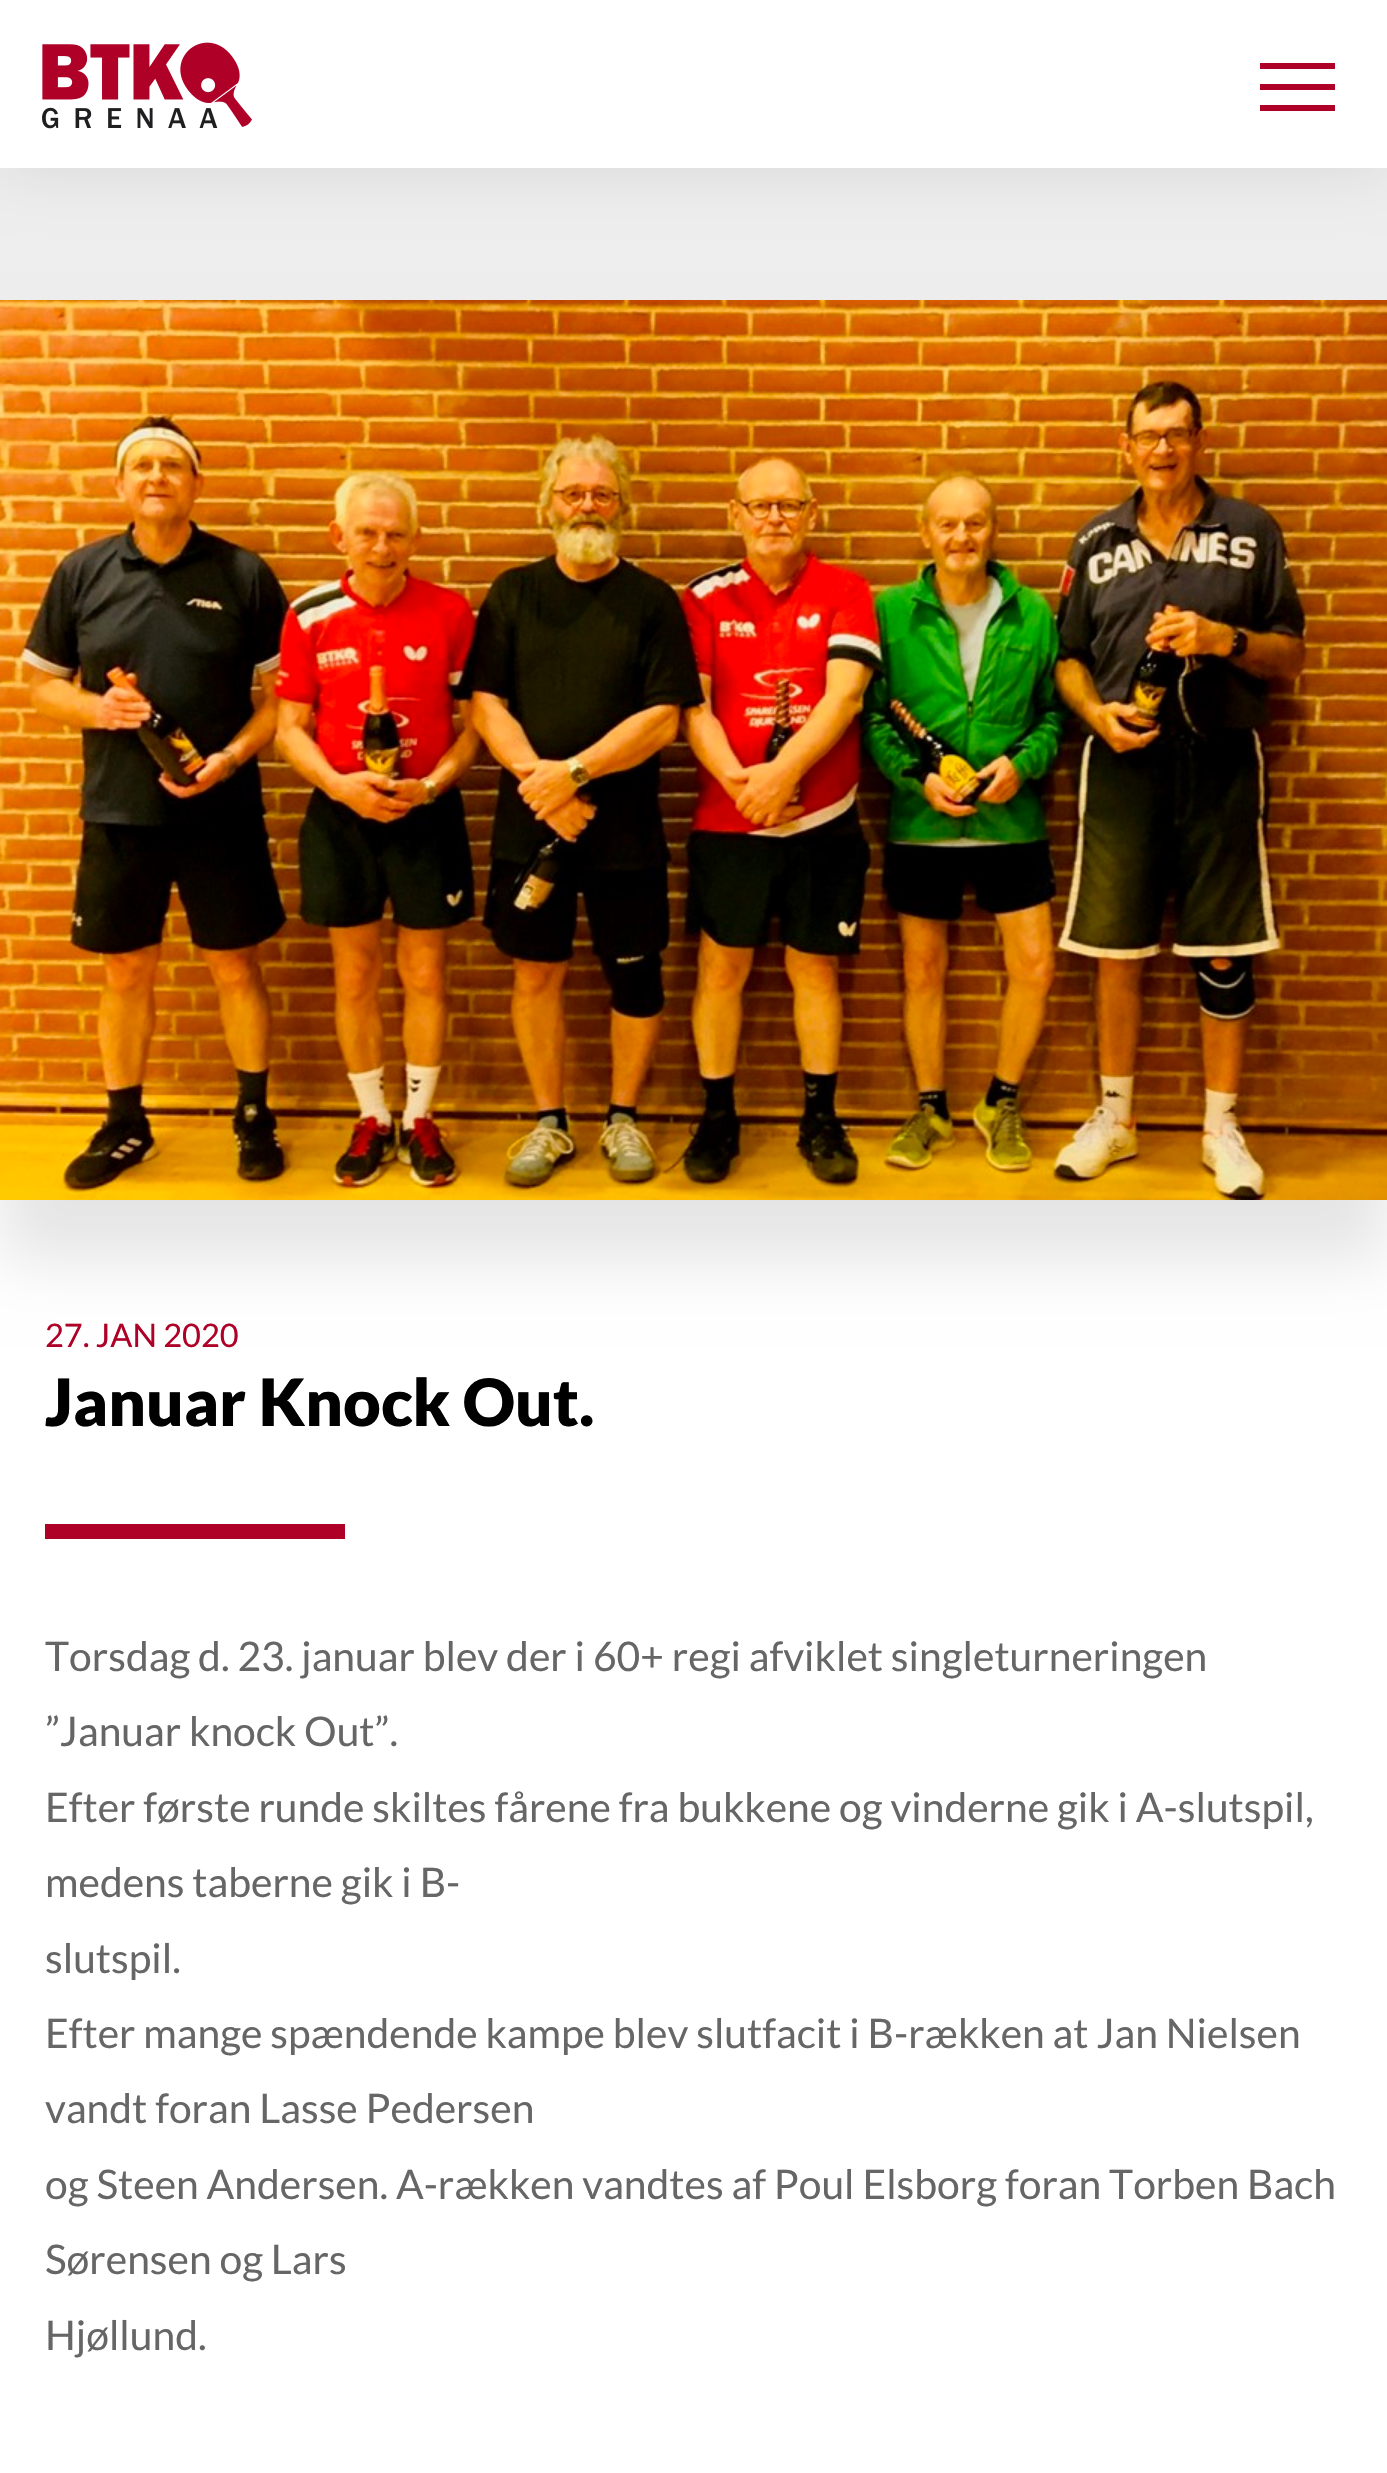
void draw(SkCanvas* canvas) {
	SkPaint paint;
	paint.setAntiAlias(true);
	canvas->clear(0xffeeeeee);
	paint.setColor(0x1a000000);
	paint.setMaskFilter(SkMaskFilter::MakeBlur(kNormal_SkBlurStyle, 30));
	canvas->drawRect(SkRect::MakeXYWH(0, 0, 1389, 168), paint);
	paint.setMaskFilter(nullptr);
	paint.setColor(0xffffffff);
	canvas->drawRect(SkRect::MakeXYWH(0, 0, 1387, 168), paint);
	canvas->drawImageRect(SkImages::DeferredFromEncodedData(SkData::MakeFromFileName("img1.png")), SkRect::MakeXYWH(42, 42, 210, 87), SkSamplingOptions());
	paint.setColor(0xffaf0028);
	canvas->drawRect(SkRect::MakeXYWH(1260, 84, 75, 6), paint);
	canvas->drawRect(SkRect::MakeXYWH(1260, 63, 75, 6), paint);
	canvas->drawRect(SkRect::MakeXYWH(1260, 105, 75, 6), paint);
	paint.setColor(0xffffffff);
	canvas->drawRect(SkRect::MakeXYWH(0, 1200, 1387, 1273), paint);
	paint.setColor(0x1a000000);
	paint.setMaskFilter(SkMaskFilter::MakeBlur(kNormal_SkBlurStyle, 30));
	canvas->drawRect(SkRect::MakeXYWH(0, 360, 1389, 900), paint);
	paint.setMaskFilter(nullptr);
	canvas->drawImageRect(SkImages::DeferredFromEncodedData(SkData::MakeFromFileName("img2.png")), SkRect::MakeXYWH(0, 300, 1387, 900), SkSamplingOptions());
	SkFont f1(fontMgr->matchFamilyStyle("Lato", SkFontStyle::Normal()), 32.5);
	f1.setSubpixel(true);
	paint.setColor(0xffaf0028);
	canvas->drawString("27. JAN 2020", 45, 1347, f1, paint);
	SkFont f2(fontMgr->matchFamilyStyle("Lato", SkFontStyle(900, SkFontStyle::kNormal_Width, SkFontStyle::kUpright_Slant)), 65.25);
	f2.setSubpixel(true);
	paint.setColor(0xff000000);
	canvas->drawString("Januar Knock Out.", 45, 1426, f2, paint);
	paint.setColor(0xffaf0028);
	canvas->drawRect(SkRect::MakeXYWH(45, 1524, 300, 15), paint);
	SkFont f3(fontMgr->matchFamilyStyle("Lato", SkFontStyle::Normal()), 40.8);
	f3.setSubpixel(true);
	paint.setColor(0xff666666);
	canvas->drawString("Torsdag d. 23. januar blev der i 60+ regi afviklet singleturneringen", 45, 1671, f3, paint);
	canvas->drawString("”Januar knock Out”.", 45, 1746, f3, paint);
	canvas->drawString("Efter første runde skiltes fårene fra bukkene og vinderne gik i A-slutspil,", 45, 1822, f3, paint);
	canvas->drawString("medens taberne gik i B-", 45, 1897, f3, paint);
	canvas->drawString("slutspil.", 45, 1973, f3, paint);
	canvas->drawString("Efter mange spændende kampe blev slutfacit i B-rækken at Jan Nielsen", 45, 2048, f3, paint);
	canvas->drawString("vandt foran Lasse Pedersen", 45, 2123, f3, paint);
	canvas->drawString("og Steen Andersen. A-rækken vandtes af Poul Elsborg foran Torben Bach", 45, 2199, f3, paint);
	canvas->drawString("Sørensen og Lars", 45, 2274, f3, paint);
	canvas->drawString("Hjøllund.", 45, 2350, f3, paint);
}
